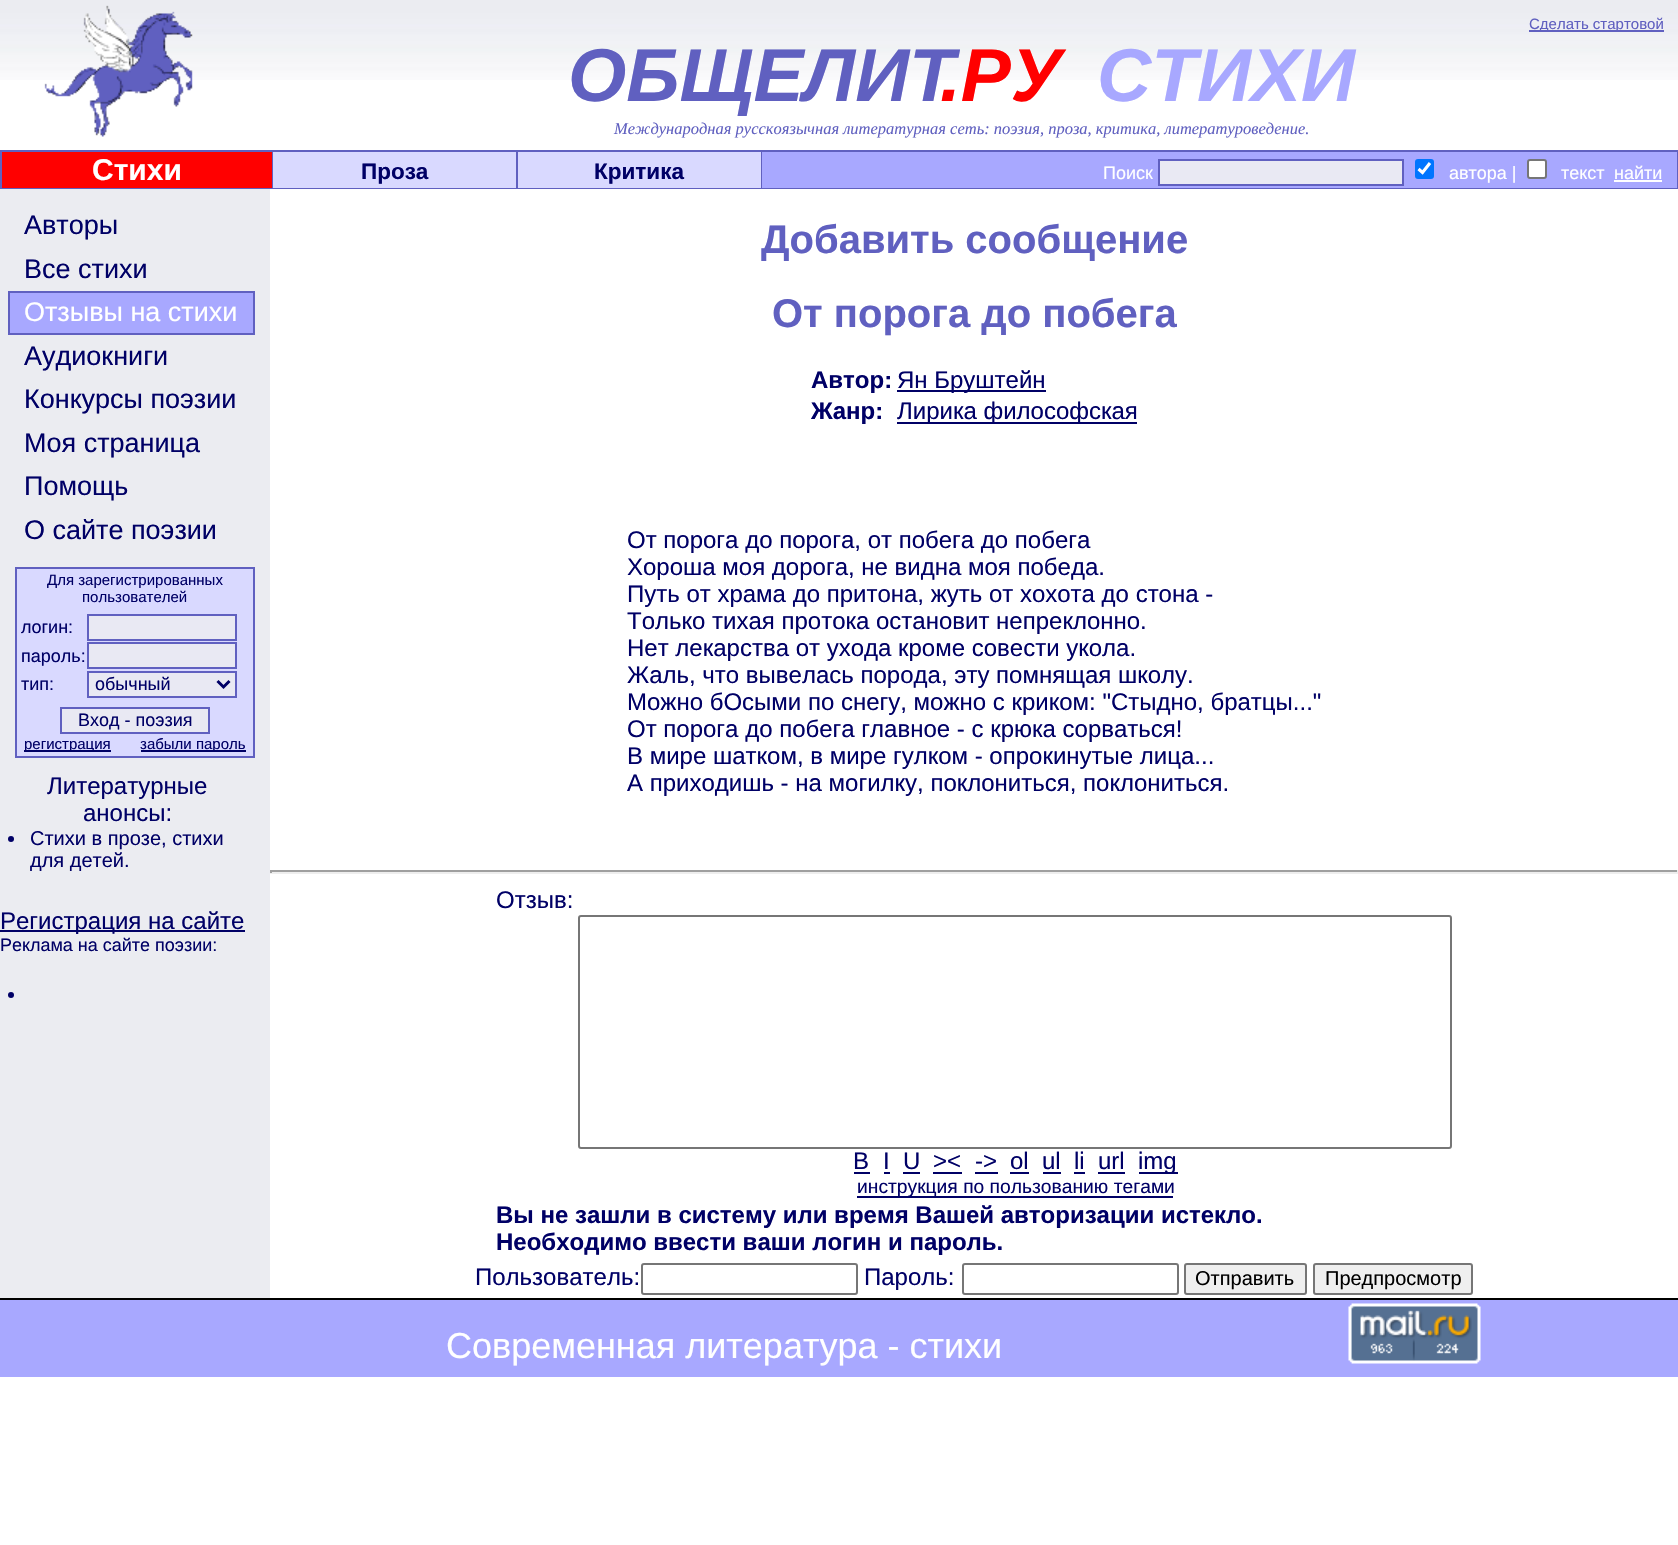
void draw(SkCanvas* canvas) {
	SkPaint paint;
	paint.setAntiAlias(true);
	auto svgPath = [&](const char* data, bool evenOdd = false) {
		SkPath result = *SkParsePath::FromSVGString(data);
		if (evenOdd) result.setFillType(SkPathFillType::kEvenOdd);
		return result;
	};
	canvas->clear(0xffffffff);
	canvas->drawImageRect(SkImages::DeferredFromEncodedData(SkData::MakeFromFileName("img1.png")), SkRect::MakeXYWH(0, 0, 1678, 80), SkSamplingOptions());
	canvas->drawImageRect(SkImages::DeferredFromEncodedData(SkData::MakeFromFileName("img2.png")), SkRect::MakeXYWH(44, 5, 149, 132), SkSamplingOptions());
	paint.setColor(0xff6060c0);
	canvas->drawRect(SkRect::MakeXYWH(1529, 30, 135, 2), paint);
	SkFont f1(fontMgr->matchFamilyStyle("Liberation Sans", SkFontStyle::Normal()), 15);
	f1.setSubpixel(true);
	canvas->drawString("Сделать стартовой", 1529, 29, f1, paint);
	SkFont f2(fontMgr->matchFamilyStyle("Liberation Sans", SkFontStyle::BoldItalic()), 75);
	f2.setSubpixel(true);
	canvas->drawString("ОБЩЕЛИТ", 568, 101, f2, paint);
	paint.setColor(0xffff0000);
	canvas->drawString(".РУ", 940, 101, f2, paint);
	paint.setColor(0xffa8a8ff);
	canvas->drawString("СТИХИ", 1097, 101, f2, paint);
	SkFont f3(fontMgr->matchFamilyStyle("Liberation Serif", SkFontStyle::Italic()), 16.5);
	f3.setSubpixel(true);
	paint.setColor(0xff6060c0);
	canvas->drawString("Международная русскоязычная литературная сеть: поэзия, проза, критика, литературоведение.", 614, 134, f3, paint);
	canvas->drawRect(SkRect::MakeXYWH(0, 150, 1678, 39), paint);
	paint.setColor(0xffff0000);
	canvas->drawRect(SkRect::MakeXYWH(2, 152, 270, 36), paint);
	SkFont f4(fontMgr->matchFamilyStyle("Liberation Sans", SkFontStyle::Bold()), 30);
	f4.setSubpixel(true);
	paint.setColor(0xffffffff);
	canvas->drawString("Стихи", 92, 180, f4, paint);
	paint.setColor(0xffd9d9ff);
	canvas->drawRect(SkRect::MakeXYWH(273, 152, 243, 36), paint);
	SkFont f5(fontMgr->matchFamilyStyle("Liberation Sans", SkFontStyle::Bold()), 22.5);
	f5.setSubpixel(true);
	paint.setColor(0xff000066);
	canvas->drawString("Проза", 361, 179, f5, paint);
	paint.setColor(0xffd9d9ff);
	canvas->drawRect(SkRect::MakeXYWH(518, 152, 243, 36), paint);
	paint.setColor(0xff000066);
	canvas->drawString("Критика", 594, 179, f5, paint);
	paint.setColor(0xffa8a8ff);
	canvas->drawRect(SkRect::MakeXYWH(762, 152, 915, 36), paint);
	SkFont f6(fontMgr->matchFamilyStyle("Liberation Sans", SkFontStyle::Normal()), 18);
	f6.setSubpixel(true);
	paint.setColor(0xffffffff);
	canvas->drawString("Поиск", 1103, 179, f6, paint);
	paint.setColor(0xffe9e9f3);
	canvas->drawRect(SkRect::MakeXYWH(1159, 160, 244, 25), paint);
	paint.setStroke(true);
	paint.setStrokeWidth(2);
	paint.setColor(0xff6060c0);
	canvas->drawRect(SkRect::MakeXYWH(1159, 160, 244, 25), paint);
	paint.setStroke(false);
	paint.setColor(0xff0075ff);
	canvas->drawRoundRect(SkRect::MakeXYWH(1415, 159, 19, 20), 3, 3, paint);
	paint.setStroke(true);
	paint.setStrokeWidth(3.1);
	paint.setColor(0xffffffff);
	canvas->drawPath(svgPath("M1418.5 169L1422.5 172.5L1430 163"), paint);
	paint.setStroke(false);
	canvas->drawString("автора |", 1449, 179, f6, paint);
	canvas->drawRoundRect(SkRect::MakeXYWH(1528, 160, 18, 18), 2, 2, paint);
	paint.setStroke(true);
	paint.setStrokeWidth(2);
	paint.setColor(0xff767676);
	canvas->drawRoundRect(SkRect::MakeXYWH(1528, 160, 18, 18), 2, 2, paint);
	paint.setStroke(false);
	paint.setColor(0xffffffff);
	canvas->drawString("текст", 1561, 179, f6, paint);
	canvas->drawString("найти", 1614, 179, f6, paint);
	canvas->drawRect(SkRect::MakeXYWH(1614, 180, 48, 2), paint);
	paint.setColor(0xffebecf1);
	canvas->drawRect(SkRect::MakeXYWH(0, 189, 270, 1109), paint);
	SkFont f7(fontMgr->matchFamilyStyle("Liberation Sans", SkFontStyle::Normal()), 27);
	f7.setSubpixel(true);
	paint.setColor(0xff000066);
	canvas->drawString("Авторы", 24, 234, f7, paint);
	canvas->drawString("Все стихи", 24, 278, f7, paint);
	paint.setColor(0xffa8a8ff);
	canvas->drawRect(SkRect::MakeXYWH(9, 292, 245, 42), paint);
	paint.setStroke(true);
	paint.setColor(0xff6060c0);
	canvas->drawRect(SkRect::MakeXYWH(9, 292, 245, 42), paint);
	paint.setStroke(false);
	paint.setColor(0xffffffff);
	canvas->drawString("Отзывы на стихи", 24, 321, f7, paint);
	paint.setColor(0xff000066);
	canvas->drawString("Аудиокниги", 24, 365, f7, paint);
	canvas->drawString("Конкурсы поэзии", 24, 408, f7, paint);
	canvas->drawString("Моя страница", 24, 452, f7, paint);
	canvas->drawString("Помощь", 24, 495, f7, paint);
	canvas->drawString("О сайте поэзии", 24, 539, f7, paint);
	paint.setColor(0xffd9d9ff);
	canvas->drawRect(SkRect::MakeXYWH(16, 568, 238, 189), paint);
	paint.setStroke(true);
	paint.setColor(0xff6060c0);
	canvas->drawRect(SkRect::MakeXYWH(16, 568, 238, 189), paint);
	paint.setStroke(false);
	paint.setColor(0xff000066);
	canvas->drawString("Для зарегистрированных", 47, 585, f1, paint);
	canvas->drawString("пользователей", 82, 602, f1, paint);
	canvas->drawString("логин:", 21, 633, f6, paint);
	paint.setColor(0xffe9e9f3);
	canvas->drawRect(SkRect::MakeXYWH(88, 615, 148, 25), paint);
	paint.setStroke(true);
	paint.setColor(0xff6060c0);
	canvas->drawRect(SkRect::MakeXYWH(88, 615, 148, 25), paint);
	paint.setStroke(false);
	paint.setColor(0xff000066);
	canvas->drawString("пароль:", 21, 662, f6, paint);
	paint.setColor(0xffe9e9f3);
	canvas->drawRect(SkRect::MakeXYWH(88, 643, 148, 25), paint);
	paint.setStroke(true);
	paint.setColor(0xff6060c0);
	canvas->drawRect(SkRect::MakeXYWH(88, 643, 148, 25), paint);
	paint.setStroke(false);
	paint.setColor(0xff000066);
	canvas->drawString("тип:", 21, 690, f6, paint);
	paint.setColor(0xffe9e9f3);
	canvas->drawRect(SkRect::MakeXYWH(88, 672, 148, 25), paint);
	paint.setStroke(true);
	paint.setColor(0xff6060c0);
	canvas->drawRect(SkRect::MakeXYWH(88, 672, 148, 25), paint);
	paint.setStrokeWidth(3);
	paint.setColor(0xff000066);
	canvas->drawPath(svgPath("M217.5 681L223.5 687L229.5 681"), paint);
	paint.setStroke(false);
	canvas->drawString("обычный", 95, 690, f6, paint);
	paint.setColor(0xffe9e9f3);
	canvas->drawRect(SkRect::MakeXYWH(61, 708, 148, 25), paint);
	paint.setStroke(true);
	paint.setStrokeWidth(2);
	paint.setColor(0xff6060c0);
	canvas->drawRect(SkRect::MakeXYWH(61, 708, 148, 25), paint);
	paint.setStroke(false);
	paint.setColor(0xff000066);
	canvas->drawString("Вход - поэзия", 78, 726, f6, paint);
	canvas->drawRect(SkRect::MakeXYWH(24, 750, 87, 2), paint);
	canvas->drawString("регистрация", 24, 749, f1, paint);
	canvas->drawRect(SkRect::MakeXYWH(141, 750, 105, 2), paint);
	canvas->drawString("забыли пароль", 140, 749, f1, paint);
	SkFont f8(fontMgr->matchFamilyStyle("Liberation Sans", SkFontStyle::Normal()), 24);
	f8.setSubpixel(true);
	canvas->drawString("Литературные", 47, 794, f8, paint);
	canvas->drawString("анонсы:", 83, 821, f8, paint);
	canvas->drawCircle(11, 839, 3, paint);
	SkFont f9(fontMgr->matchFamilyStyle("Liberation Sans", SkFontStyle::Normal()), 20);
	f9.setSubpixel(true);
	canvas->drawString("Стихи в прозе, стихи", 30, 845, f9, paint);
	canvas->drawString("для детей.", 30, 867, f9, paint);
	canvas->drawRect(SkRect::MakeXYWH(0, 930, 245, 2), paint);
	canvas->drawString("Регистрация на сайте", 0, 929, f8, paint);
	canvas->drawString("Реклама на сайте поэзии:", 0, 951, f6, paint);
	canvas->drawCircle(11, 995, 3, paint);
	SkFont f10(fontMgr->matchFamilyStyle("Liberation Sans", SkFontStyle::Bold()), 40);
	f10.setSubpixel(true);
	paint.setColor(0xff6060c0);
	canvas->drawString("Добавить сообщение", 761, 253, f10, paint);
	canvas->drawString("От порога до побега", 772, 327, f10, paint);
	SkFont f11(fontMgr->matchFamilyStyle("Liberation Sans", SkFontStyle::Bold()), 24);
	f11.setSubpixel(true);
	paint.setColor(0xff000066);
	canvas->drawString("Автор:", 811, 388, f11, paint);
	canvas->drawRect(SkRect::MakeXYWH(897, 390, 149, 2), paint);
	canvas->drawString("Ян Бруштейн", 897, 388, f8, paint);
	canvas->drawString("Жанр:", 811, 419, f11, paint);
	canvas->drawRect(SkRect::MakeXYWH(897, 422, 240, 2), paint);
	canvas->drawString("Лирика философская", 897, 419, f8, paint);
	canvas->drawString("От порога до порога, от побега до побега", 627, 548, f8, paint);
	canvas->drawString("Хороша моя дорога, не видна моя победа.", 627, 575, f8, paint);
	canvas->drawString("Путь от храма до притона, жуть от хохота до стона -", 627, 602, f8, paint);
	canvas->drawString("Только тихая протока остановит непреклонно.", 627, 629, f8, paint);
	canvas->drawString("Нет лекарства от ухода кроме совести укола.", 627, 656, f8, paint);
	canvas->drawString("Жаль, что вывелась порода, эту помнящая школу.", 627, 683, f8, paint);
	canvas->drawString("Можно бОсыми по снегу, можно с криком: \"Стыдно, братцы...\"", 627, 710, f8, paint);
	canvas->drawString("От порога до побега главное - с крюка сорваться!", 627, 737, f8, paint);
	canvas->drawString("В мире шатком, в мире гулком - опрокинутые лица...", 627, 764, f8, paint);
	canvas->drawString("А приходишь - на могилку, поклониться, поклониться.", 627, 791, f8, paint);
	paint.setColor(0xff9f9f9f);
	canvas->drawRect(SkRect::MakeXYWH(270, 870, 1408, 2), paint);
	paint.setColor(0xffeeeeee);
	canvas->drawRect(SkRect::MakeXYWH(1677, 870, 1, 3), paint);
	canvas->drawRect(SkRect::MakeXYWH(270, 872, 1408, 2), paint);
	paint.setColor(0xff9f9f9f);
	canvas->drawRect(SkRect::MakeXYWH(270, 870, 2, 3), paint);
	paint.setColor(0xff000066);
	canvas->drawString("Отзыв:", 496, 908, f8, paint);
	paint.setStroke(true);
	paint.setColor(0xff767676);
	canvas->drawRoundRect(SkRect::MakeXYWH(579, 916, 872, 232), 2, 2, paint);
	paint.setStroke(false);
	paint.setColor(0xff000066);
	canvas->drawString("B", 853, 1169, f8, paint);
	canvas->drawRect(SkRect::MakeXYWH(854, 1172, 16, 2), paint);
	canvas->drawString("I", 883, 1169, f8, paint);
	canvas->drawRect(SkRect::MakeXYWH(884, 1172, 6, 2), paint);
	canvas->drawString("U", 903, 1169, f8, paint);
	canvas->drawRect(SkRect::MakeXYWH(903, 1172, 17, 2), paint);
	canvas->drawString("><", 933, 1169, f8, paint);
	canvas->drawRect(SkRect::MakeXYWH(933, 1172, 29, 2), paint);
	canvas->drawString("->", 975, 1169, f8, paint);
	canvas->drawRect(SkRect::MakeXYWH(975, 1172, 23, 2), paint);
	canvas->drawString("ol", 1010, 1169, f8, paint);
	canvas->drawRect(SkRect::MakeXYWH(1010, 1172, 19, 2), paint);
	canvas->drawString("ul", 1042, 1169, f8, paint);
	canvas->drawRect(SkRect::MakeXYWH(1043, 1172, 18, 2), paint);
	canvas->drawString("li", 1074, 1169, f8, paint);
	canvas->drawRect(SkRect::MakeXYWH(1074, 1172, 11, 2), paint);
	canvas->drawString("url", 1098, 1169, f8, paint);
	canvas->drawRect(SkRect::MakeXYWH(1098, 1172, 27, 2), paint);
	canvas->drawRect(SkRect::MakeXYWH(1139, 1172, 39, 2), paint);
	canvas->drawString("img", 1138, 1169, f8, paint);
	canvas->drawRect(SkRect::MakeXYWH(857, 1196, 316, 2), paint);
	SkFont f12(fontMgr->matchFamilyStyle("Liberation Sans", SkFontStyle::Normal()), 19.25);
	f12.setSubpixel(true);
	canvas->drawString("инструкция по пользованию тегами", 857, 1193, f12, paint);
	canvas->drawString("Вы не зашли в систему или время Вашей авторизации истекло.", 496, 1223, f11, paint);
	canvas->drawString("Необходимо ввести ваши логин и пароль.", 496, 1250, f11, paint);
	canvas->drawString("Пользователь:", 475, 1285, f8, paint);
	paint.setStroke(true);
	paint.setColor(0xff767676);
	canvas->drawRoundRect(SkRect::MakeXYWH(642, 1264, 215, 30), 2, 2, paint);
	paint.setStroke(false);
	paint.setColor(0xff000066);
	canvas->drawString("Пароль:", 864, 1285, f8, paint);
	paint.setStroke(true);
	paint.setColor(0xff767676);
	canvas->drawRoundRect(SkRect::MakeXYWH(963, 1264, 215, 30), 2, 2, paint);
	paint.setStroke(false);
	paint.setColor(0xffefefef);
	canvas->drawRoundRect(SkRect::MakeXYWH(1185, 1264, 121, 30), 2, 2, paint);
	paint.setStroke(true);
	paint.setColor(0xff767676);
	canvas->drawRoundRect(SkRect::MakeXYWH(1185, 1264, 121, 30), 2, 2, paint);
	paint.setStroke(false);
	paint.setColor(0xff000000);
	canvas->drawString("Отправить", 1195, 1285, f9, paint);
	paint.setColor(0xffefefef);
	canvas->drawRoundRect(SkRect::MakeXYWH(1314, 1264, 158, 30), 2, 2, paint);
	paint.setStroke(true);
	paint.setColor(0xff767676);
	canvas->drawRoundRect(SkRect::MakeXYWH(1314, 1264, 158, 30), 2, 2, paint);
	paint.setStroke(false);
	paint.setColor(0xff000000);
	canvas->drawString("Предпросмотр", 1325, 1285, f9, paint);
	paint.setColor(0xffa8a8ff);
	canvas->drawRect(SkRect::MakeXYWH(0, 1300, 1678, 77), paint);
	paint.setColor(0xff000000);
	canvas->drawRect(SkRect::MakeXYWH(0, 1298, 1678, 2), paint);
	SkFont f13(fontMgr->matchFamilyStyle("Liberation Sans", SkFontStyle::Normal()), 36);
	f13.setSubpixel(true);
	paint.setColor(0xffffffff);
	canvas->drawString("Современная литература - стихи", 446, 1358, f13, paint);
	canvas->drawImageRect(SkImages::DeferredFromEncodedData(SkData::MakeFromFileName("img3.png")), SkRect::MakeXYWH(1348, 1303, 133, 61), SkSamplingOptions());
}
